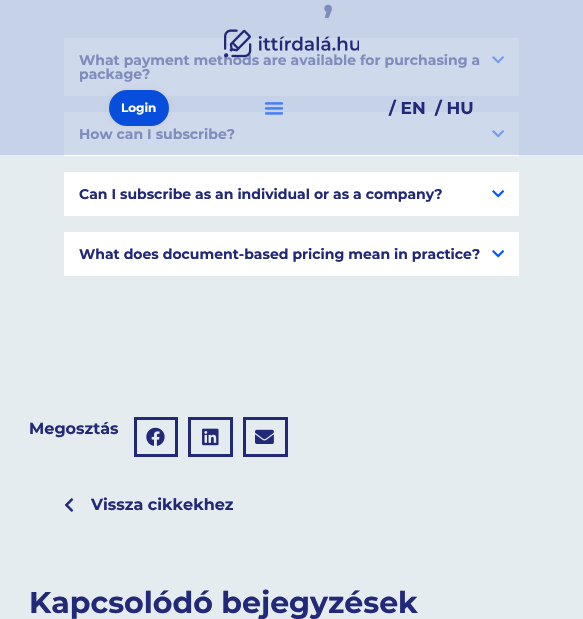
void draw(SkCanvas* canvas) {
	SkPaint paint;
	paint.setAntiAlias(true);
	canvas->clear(0xffe5ecef);
	paint.setColor(0xffc6d2e7);
	canvas->drawRect(SkRect::MakeXYWH(0, 0, 583, 155), paint);
	SkFont f1(fontMgr->matchFamilyStyle("Montserrat", SkFontStyle::Bold()), 39);
	f1.setSubpixel(true);
	paint.setColor(0xff808cbc);
	canvas->drawString(",", 323, 12, f1, paint);
	paint.setColor(0xffcfd9ec);
	canvas->drawRect(SkRect::MakeXYWH(64, 38, 455, 58), paint);
	SkFont f2(fontMgr->matchFamilyStyle("Montserrat", SkFontStyle::Bold()), 14);
	f2.setSubpixel(true);
	paint.setColor(0xff808cbc);
	canvas->drawString("What payment methods are available for purchasing a", 79, 65, f2, paint);
	canvas->drawImageRect(SkImages::DeferredFromEncodedData(SkData::MakeFromFileName("img1.png")), SkRect::MakeXYWH(492, 56, 12, 8), SkSamplingOptions());
	canvas->drawString("package?", 79, 79, f2, paint);
	paint.setColor(0xffffffff);
	canvas->drawRect(SkRect::MakeXYWH(64, 155, 455, 1), paint);
	paint.setColor(0xffcfd9ec);
	canvas->drawRect(SkRect::MakeXYWH(64, 112, 455, 43), paint);
	paint.setColor(0xff808cbc);
	canvas->drawString("How can I subscribe?", 79, 139, f2, paint);
	canvas->drawImageRect(SkImages::DeferredFromEncodedData(SkData::MakeFromFileName("img1.png")), SkRect::MakeXYWH(492, 130, 12, 8), SkSamplingOptions());
	paint.setColor(0xffffffff);
	canvas->drawRect(SkRect::MakeXYWH(64, 172, 455, 44), paint);
	paint.setColor(0xff232979);
	canvas->drawString("Can I subscribe as an individual or as a company?", 79, 199, f2, paint);
	canvas->drawImageRect(SkImages::DeferredFromEncodedData(SkData::MakeFromFileName("img2.png")), SkRect::MakeXYWH(492, 190, 12, 8), SkSamplingOptions());
	paint.setColor(0xffffffff);
	canvas->drawRect(SkRect::MakeXYWH(64, 232, 455, 44), paint);
	paint.setColor(0xff232979);
	canvas->drawString("What does document-based pricing mean in practice?", 79, 259, f2, paint);
	canvas->drawImageRect(SkImages::DeferredFromEncodedData(SkData::MakeFromFileName("img2.png")), SkRect::MakeXYWH(492, 250, 12, 8), SkSamplingOptions());
	SkFont f3(fontMgr->matchFamilyStyle("Montserrat", SkFontStyle::Bold()), 16);
	f3.setSubpixel(true);
	canvas->drawString("Megosztás", 29, 434, f3, paint);
	paint.setStroke(true);
	paint.setStrokeWidth(3);
	canvas->drawRect(SkRect::MakeXYWH(135.5, 418.5, 41, 37), paint);
	canvas->drawImageRect(SkImages::DeferredFromEncodedData(SkData::MakeFromFileName("img3.png")), SkRect::MakeXYWH(146, 427, 19, 19), SkSamplingOptions());
	canvas->drawRect(SkRect::MakeXYWH(189.5, 418.5, 42, 37), paint);
	canvas->drawImageRect(SkImages::DeferredFromEncodedData(SkData::MakeFromFileName("img4.png")), SkRect::MakeXYWH(202, 428, 17, 18), SkSamplingOptions());
	canvas->drawRect(SkRect::MakeXYWH(244.5, 418.5, 42, 37), paint);
	canvas->drawImageRect(SkImages::DeferredFromEncodedData(SkData::MakeFromFileName("img5.png")), SkRect::MakeXYWH(255, 429, 19, 15), SkSamplingOptions());
	canvas->drawImageRect(SkImages::DeferredFromEncodedData(SkData::MakeFromFileName("img6.png")), SkRect::MakeXYWH(64, 498, 10, 14), SkSamplingOptions());
	paint.setStroke(false);
	canvas->drawString("Vissza cikkekhez", 91, 510, f3, paint);
	SkFont f4(fontMgr->matchFamilyStyle("Montserrat", SkFontStyle::Bold()), 30);
	f4.setSubpixel(true);
	canvas->drawString("Kapcsolódó bejegyzések", 29, 613, f4, paint);
	canvas->drawImageRect(SkImages::DeferredFromEncodedData(SkData::MakeFromFileName("img7.png")), SkRect::MakeXYWH(224, 29, 135, 29), SkSamplingOptions());
	paint.setColor(0x80bdbdbd);
	paint.setMaskFilter(SkMaskFilter::MakeBlur(kNormal_SkBlurStyle, 5));
	canvas->drawRoundRect(SkRect::MakeXYWH(109, 90, 60, 36), 18, 18, paint);
	paint.setMaskFilter(nullptr);
	paint.setColor(0xff084edd);
	canvas->drawRoundRect(SkRect::MakeXYWH(109, 90, 60, 36), 18, 18, paint);
	SkFont f5(fontMgr->matchFamilyStyle("Montserrat", SkFontStyle::Bold()), 12);
	f5.setSubpixel(true);
	paint.setColor(0xffffffff);
	canvas->drawString("Login", 121, 112, f5, paint);
	canvas->drawImageRect(SkImages::DeferredFromEncodedData(SkData::MakeFromFileName("img8.png")), SkRect::MakeXYWH(264, 102, 20, 13), SkSamplingOptions());
	SkFont f6(fontMgr->matchFamilyStyle("Montserrat", SkFontStyle::Bold()), 17);
	f6.setSubpixel(true);
	paint.setColor(0xff232979);
	canvas->drawString("/ EN", 389, 114, f6, paint);
	canvas->drawString("/ HU", 435, 114, f6, paint);
}
